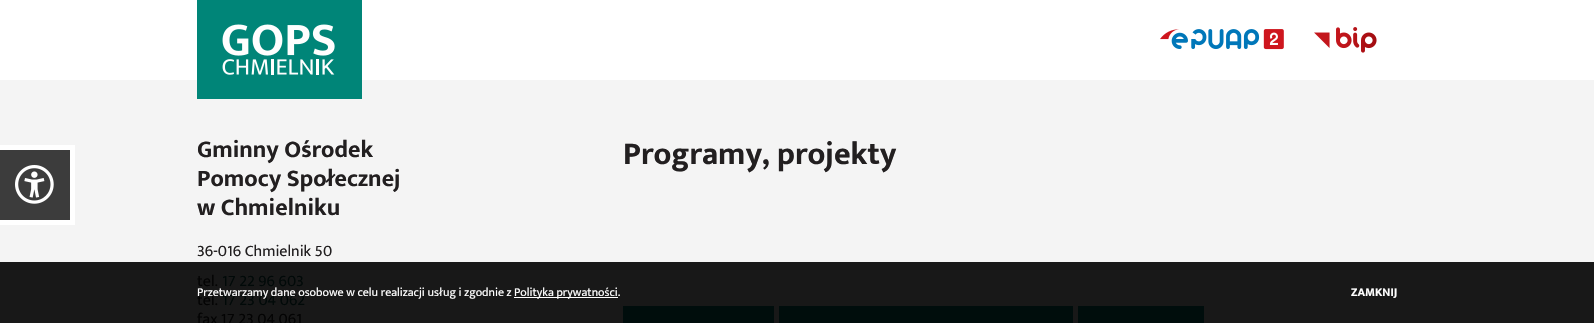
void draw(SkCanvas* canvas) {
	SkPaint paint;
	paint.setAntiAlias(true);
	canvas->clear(0xffffffff);
	paint.setColor(0xfff4f4f4);
	canvas->drawRect(SkRect::MakeXYWH(0, 80, 1594, 182), paint);
	canvas->drawImageRect(SkImages::DeferredFromEncodedData(SkData::MakeFromFileName("img1.png")), SkRect::MakeXYWH(197, 0, 165, 99), SkSamplingOptions());
	canvas->drawImageRect(SkImages::DeferredFromEncodedData(SkData::MakeFromFileName("img2.png")), SkRect::MakeXYWH(1160, 29, 124, 21), SkSamplingOptions());
	canvas->drawImageRect(SkImages::DeferredFromEncodedData(SkData::MakeFromFileName("img3.png")), SkRect::MakeXYWH(1314, 27, 63, 26), SkSamplingOptions());
	paint.setColor(0xff3c3c3c);
	canvas->drawRect(SkRect::MakeXYWH(-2.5, 147.5, 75, 75), paint);
	paint.setStroke(true);
	paint.setStrokeWidth(5);
	paint.setColor(0xffffffff);
	canvas->drawRect(SkRect::MakeXYWH(-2.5, 147.5, 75, 75), paint);
	canvas->drawImageRect(SkImages::DeferredFromEncodedData(SkData::MakeFromFileName("img4.png")), SkRect::MakeXYWH(15, 165, 39, 39), SkSamplingOptions());
	paint.setStroke(false);
	paint.setColor(0xff181818);
	canvas->drawRect(SkRect::MakeXYWH(0, 262, 1594, 61), paint);
	SkFont f1(fontMgr->matchFamilyStyle("Mukta", SkFontStyle::Bold()), 24);
	f1.setSubpixel(true);
	paint.setColor(0xff221f20);
	canvas->drawString("Gminny Ośrodek", 197, 157, f1, paint);
	canvas->drawString("Pomocy Społecznej", 197, 186, f1, paint);
	canvas->drawString("w Chmielniku", 197, 215, f1, paint);
	SkFont f2(fontMgr->matchFamilyStyle("Mukta", SkFontStyle::Normal()), 16);
	f2.setSubpixel(true);
	canvas->drawString("36-016 Chmielnik 50", 197, 256, f2, paint);
	paint.setColor(0xff030303);
	canvas->drawString("tel.", 197, 286, f2, paint);
	paint.setColor(0xff010908);
	canvas->drawString("17 22 96 603", 222, 286, f2, paint);
	paint.setColor(0xff030303);
	canvas->drawString("tel.", 197, 305, f2, paint);
	paint.setColor(0xff010908);
	canvas->drawString("17 23 04 062", 222, 305, f2, paint);
	paint.setColor(0xff030303);
	canvas->drawString("fax 17 23 04 061", 197, 324, f2, paint);
	SkFont f3(fontMgr->matchFamilyStyle("Mukta", SkFontStyle::Bold()), 32);
	f3.setSubpixel(true);
	paint.setColor(0xff221f20);
	canvas->drawString("Programy, projekty", 623, 164, f3, paint);
	paint.setColor(0xff000d0c);
	canvas->drawRect(SkRect::MakeXYWH(623, 306, 151, 17), paint);
	canvas->drawRect(SkRect::MakeXYWH(779, 306, 294, 17), paint);
	canvas->drawRect(SkRect::MakeXYWH(1078, 306, 126, 17), paint);
	SkFont f4(fontMgr->matchFamilyStyle("Mukta", SkFontStyle::Normal()), 12);
	f4.setSubpixel(true);
	paint.setColor(0xffffffff);
	canvas->drawString("Przetwarzamy dane osobowe w celu realizacji usług i zgodnie z", 197, 296, f4, paint);
	canvas->drawRect(SkRect::MakeXYWH(514, 297, 104, 1), paint);
	canvas->drawString("Polityka prywatności.", 514, 296, f4, paint);
	SkFont f5(fontMgr->matchFamilyStyle("Mukta", SkFontStyle::Bold()), 12);
	f5.setSubpixel(true);
	canvas->drawString("ZAMKNIJ", 1351, 296, f5, paint);
}
